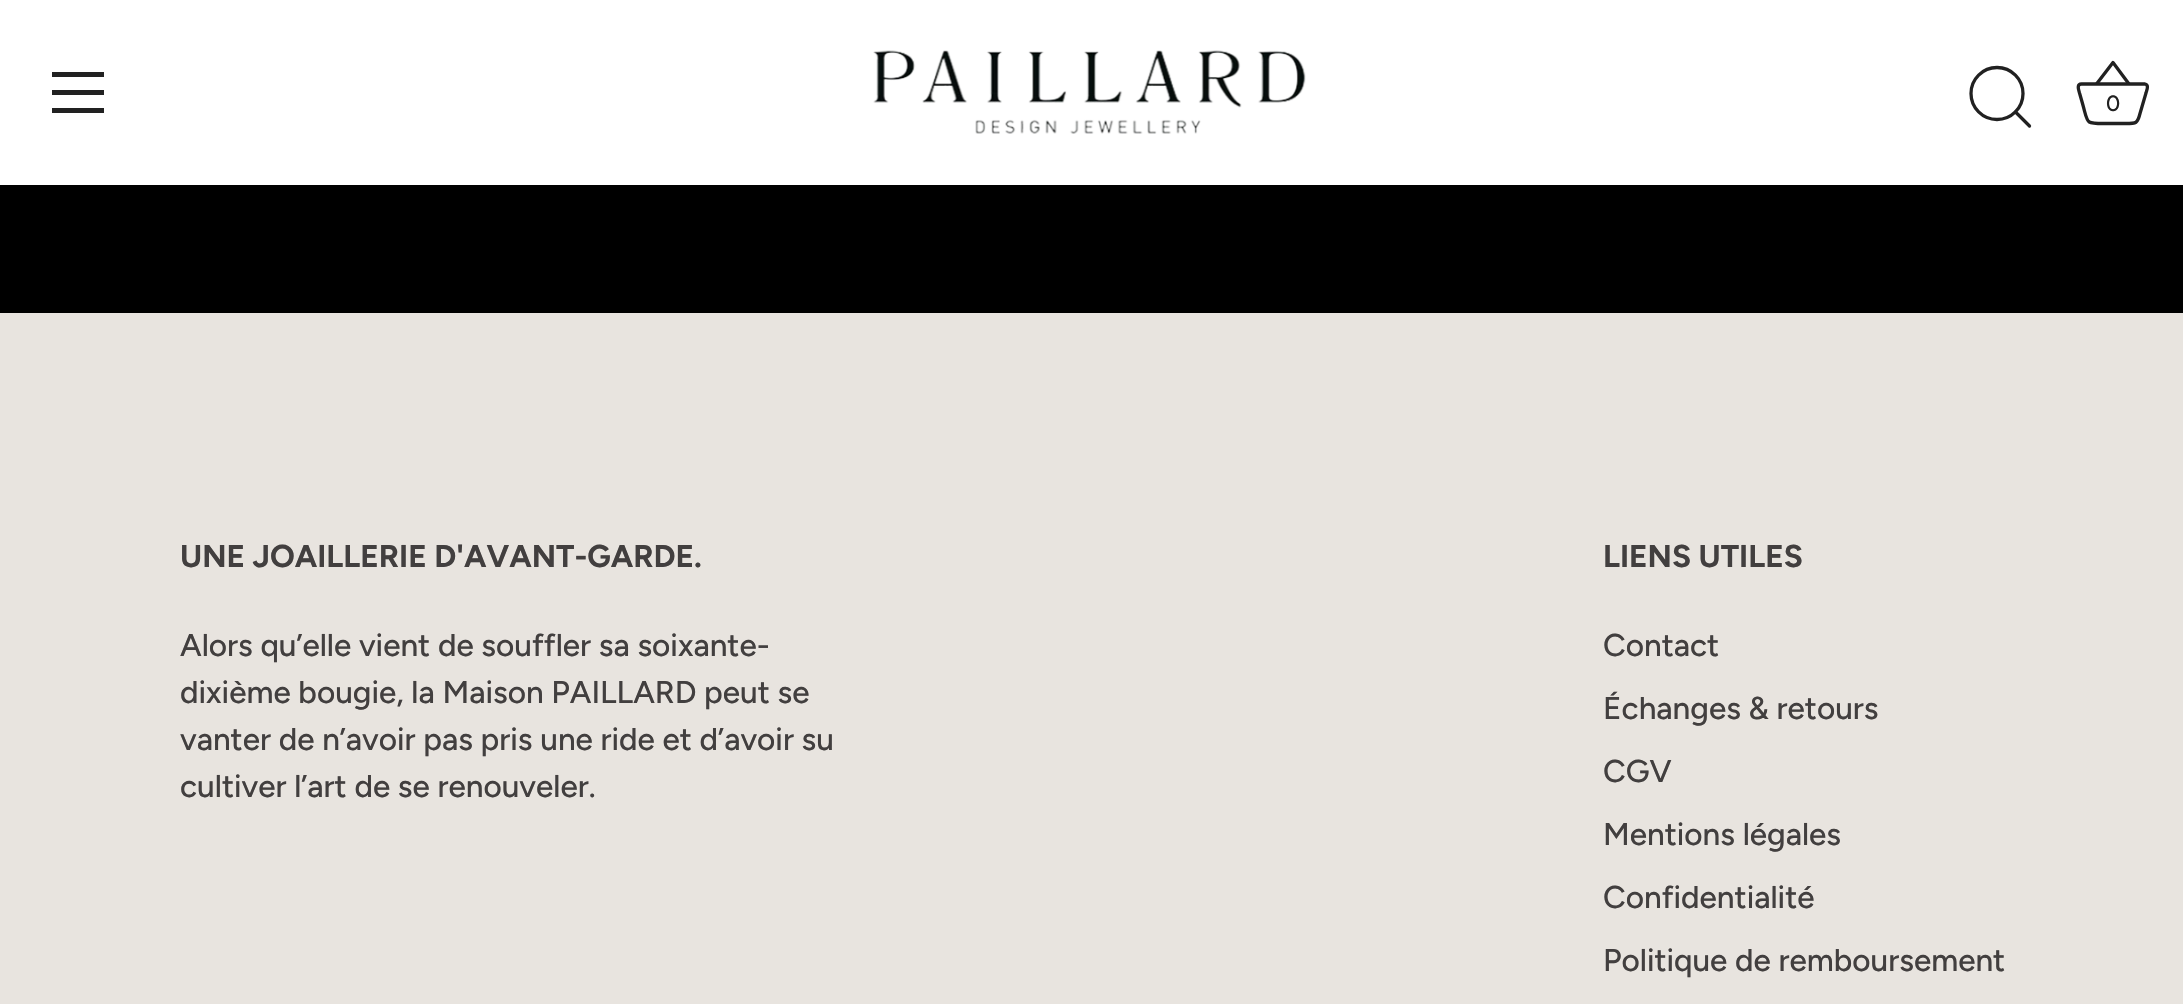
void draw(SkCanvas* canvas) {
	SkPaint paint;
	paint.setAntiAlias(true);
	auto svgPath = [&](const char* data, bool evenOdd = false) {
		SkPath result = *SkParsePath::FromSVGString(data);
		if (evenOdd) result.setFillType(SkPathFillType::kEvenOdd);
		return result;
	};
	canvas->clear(0xffe8e4df);
	paint.setColor(0xffffffff);
	canvas->drawRect(SkRect::MakeXYWH(0, 0, 2183, 185), paint);
	paint.setColor(0xff212121);
	canvas->drawRect(SkRect::MakeXYWH(52, 72, 52, 5), paint);
	canvas->drawRect(SkRect::MakeXYWH(52, 90, 52, 5), paint);
	canvas->drawRect(SkRect::MakeXYWH(52, 108, 52, 5), paint);
	canvas->drawImageRect(SkImages::DeferredFromEncodedData(SkData::MakeFromFileName("img1.png")), SkRect::MakeXYWH(873, 50, 433, 84), SkSamplingOptions());
	paint.setStroke(true);
	paint.setStrokeWidth(3.3);
	canvas->drawCircle(1997, 93.5, 26, paint);
	paint.setStrokeCap(SkPaint::kRound_Cap);
	paint.setStrokeJoin(SkPaint::kRound_Join);
	canvas->drawPath(svgPath("M2029.5 126L2015.5 112"), paint);
	paint.setStrokeCap(SkPaint::kButt_Cap);
	canvas->drawPath(svgPath("M2081.5 84C2076 84 2079 91 2079.5 93L2082.5 103.5C2088.5 124.5 2084.5 123.5 2106.5 123.5H2125.5C2136.5 123.5 2137.5 123.5 2140 113.5L2146 93C2146.5 90.5 2149.5 85 2145 84H2081.5"), paint);
	canvas->drawPath(svgPath("M2096.5 84L2113 62.5L2129 84"), paint);
	SkFont f1(fontMgr->matchFamilyStyle("Figtree", SkFontStyle(500, SkFontStyle::kNormal_Width, SkFontStyle::kUpright_Slant)), 22);
	f1.setSubpixel(true);
	paint.setStroke(false);
	canvas->drawString("0", 2106, 111, f1, paint);
	paint.setColor(0xff000000);
	canvas->drawRect(SkRect::MakeXYWH(0, 185, 2183, 128), paint);
	SkFont f2(fontMgr->matchFamilyStyle("Figtree", SkFontStyle::Bold()), 31.5);
	f2.setSubpixel(true);
	paint.setColor(0xff423f3f);
	canvas->drawString("UNE JOAILLERIE D'AVANT-GARDE.", 180, 567, f2, paint);
	SkFont f3(fontMgr->matchFamilyStyle("Figtree", SkFontStyle(500, SkFontStyle::kNormal_Width, SkFontStyle::kUpright_Slant)), 31.5);
	f3.setSubpixel(true);
	canvas->drawString("Alors qu’elle vient de souffler sa soixante-", 180, 656, f3, paint);
	canvas->drawString("dixième bougie, la Maison PAILLARD peut se", 180, 703, f3, paint);
	canvas->drawString("vanter de n’avoir pas pris une ride et d’avoir su", 180, 750, f3, paint);
	canvas->drawString("cultiver l’art de se renouveler.", 180, 797, f3, paint);
	canvas->drawString("LIENS UTILES", 1603, 567, f2, paint);
	canvas->drawString("Contact", 1603, 656, f3, paint);
	canvas->drawString("Échanges & retours", 1603, 719, f3, paint);
	canvas->drawString("CGV", 1603, 782, f3, paint);
	canvas->drawString("Mentions légales", 1603, 845, f3, paint);
	canvas->drawString("Confidentialité", 1603, 908, f3, paint);
	canvas->drawString("Politique de remboursement", 1603, 971, f3, paint);
}
